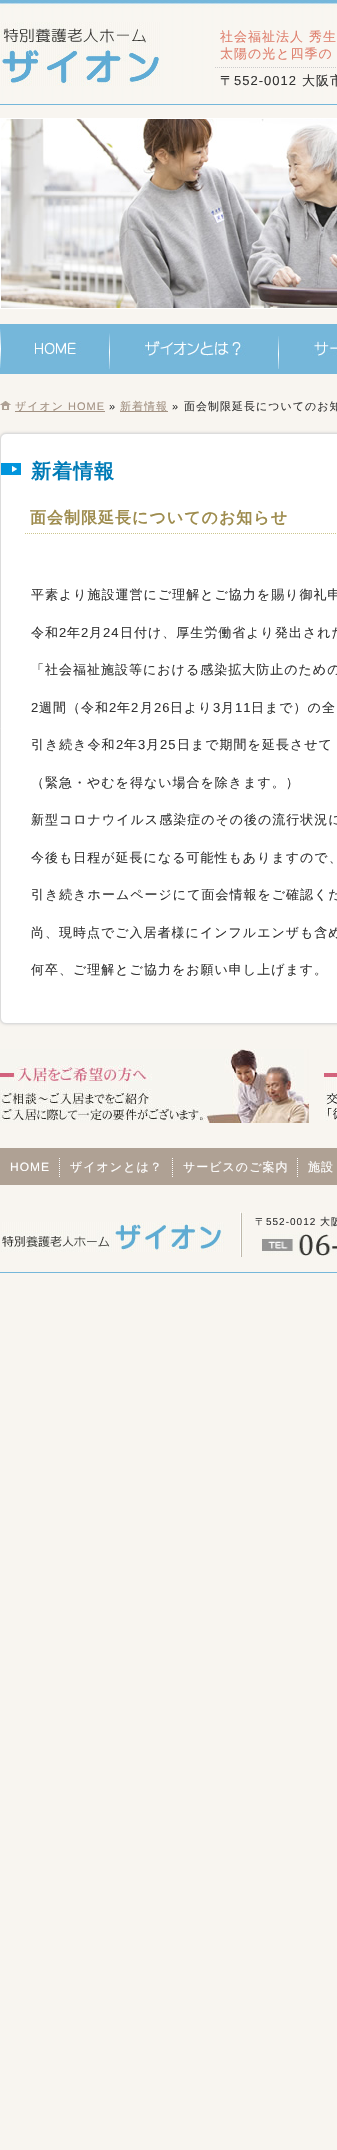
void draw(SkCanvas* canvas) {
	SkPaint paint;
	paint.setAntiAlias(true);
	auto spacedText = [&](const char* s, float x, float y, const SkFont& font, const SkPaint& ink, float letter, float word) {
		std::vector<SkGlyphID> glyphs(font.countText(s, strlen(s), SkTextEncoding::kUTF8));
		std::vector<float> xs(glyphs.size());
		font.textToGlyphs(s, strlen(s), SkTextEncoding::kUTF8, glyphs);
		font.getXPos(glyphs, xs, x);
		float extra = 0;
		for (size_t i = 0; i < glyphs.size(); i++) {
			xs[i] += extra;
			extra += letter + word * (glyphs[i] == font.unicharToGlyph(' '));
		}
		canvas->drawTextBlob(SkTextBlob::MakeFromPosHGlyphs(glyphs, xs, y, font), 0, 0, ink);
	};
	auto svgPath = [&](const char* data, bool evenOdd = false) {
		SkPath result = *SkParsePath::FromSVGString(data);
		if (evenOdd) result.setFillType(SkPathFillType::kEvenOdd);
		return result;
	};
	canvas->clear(0xfff8f5f0);
	canvas->drawImageRect(SkImages::DeferredFromEncodedData(SkData::MakeFromFileName("img1.png")), SkRect::MakeXYWH(0, 0, 337, 105), SkSamplingOptions());
	canvas->drawImageRect(SkImages::DeferredFromEncodedData(SkData::MakeFromFileName("img2.png")), SkRect::MakeXYWH(0, 22, 160, 64), SkSamplingOptions());
	paint.setStroke(true);
	paint.setStrokeWidth(1);
	paint.setColor(0xffcccccc);
	paint.setPathEffect(SkDashPathEffect::Make({{1, 1}}, 0));
	canvas->drawPath(svgPath("M215 67.5H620"), paint);
	paint.setPathEffect(nullptr);
	SkFont f1(fontMgr->matchFamilyStyle("WenQuanYi Zen Hei", SkFontStyle(500, SkFontStyle::kNormal_Width, SkFontStyle::kUpright_Slant)), 13);
	f1.setSubpixel(true);
	paint.setStroke(false);
	paint.setColor(0xffdf806e);
	spacedText("社会福祉法人 秀生", 220, 41, f1, paint, 1, 0);
	spacedText("太陽の光と四季の", 220, 58, f1, paint, 1, 0);
	paint.setColor(0xff333333);
	spacedText("〒", 220, 85, f1, paint, 1, 0);
	SkFont f2(fontMgr->matchFamilyStyle("Liberation Sans", SkFontStyle::Normal()), 13);
	f2.setSubpixel(true);
	spacedText("552-0012", 234, 85, f2, paint, 1, 0);
	spacedText("大阪市", 302, 85, f1, paint, 1, 0);
	paint.setStroke(true);
	paint.setColor(0xffffffff);
	canvas->drawRect(SkRect::MakeXYWH(0.5, 118.5, 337, 190), paint);
	canvas->drawImageRect(SkImages::DeferredFromEncodedData(SkData::MakeFromFileName("img3.png")), SkRect::MakeXYWH(1, 119, 336, 189), SkSamplingOptions());
	paint.setStroke(false);
	paint.setColor(0xff75b7da);
	canvas->drawRect(SkRect::MakeXYWH(0, 324, 337, 50), paint);
	canvas->drawImageRect(SkImages::DeferredFromEncodedData(SkData::MakeFromFileName("img4.png")), SkRect::MakeXYWH(0, 329, 2, 39), SkSamplingOptions());
	canvas->drawImageRect(SkImages::DeferredFromEncodedData(SkData::MakeFromFileName("img5.png")), SkRect::MakeXYWH(1, 333, 109, 37), SkSamplingOptions());
	canvas->drawImageRect(SkImages::DeferredFromEncodedData(SkData::MakeFromFileName("img6.png")), SkRect::MakeXYWH(142, 336, 137, 33), SkSamplingOptions());
	canvas->drawImageRect(SkImages::DeferredFromEncodedData(SkData::MakeFromFileName("img7.png")), SkRect::MakeXYWH(311, 340, 26, 16), SkSamplingOptions());
	canvas->drawImageRect(SkImages::DeferredFromEncodedData(SkData::MakeFromFileName("img8.png")), SkRect::MakeXYWH(0, 401, 11, 9), SkSamplingOptions());
	paint.setColor(0xffa29182);
	canvas->drawRect(SkRect::MakeXYWH(15, 411, 90, 1), paint);
	SkFont f3(fontMgr->matchFamilyStyle("WenQuanYi Zen Hei", SkFontStyle(500, SkFontStyle::kNormal_Width, SkFontStyle::kUpright_Slant)), 11);
	f3.setSubpixel(true);
	spacedText("ザイオン", 15, 410, f3, paint, 1, 0);
	SkFont f4(fontMgr->matchFamilyStyle("Liberation Sans", SkFontStyle::Normal()), 11);
	f4.setSubpixel(true);
	spacedText("HOME", 68, 410, f4, paint, 1, 0);
	paint.setColor(0xff333333);
	spacedText("»", 109, 410, f4, paint, 1, 0);
	paint.setColor(0xffa29182);
	canvas->drawRect(SkRect::MakeXYWH(120, 411, 48, 1), paint);
	spacedText("新着情報", 120, 410, f3, paint, 1, 0);
	paint.setColor(0xff333333);
	spacedText("»", 172, 410, f4, paint, 1, 0);
	spacedText("面会制限延長についてのお知", 184, 410, f3, paint, 1, 0);
	paint.setColor(0xffcccccc);
	paint.setMaskFilter(SkMaskFilter::MakeBlur(kNormal_SkBlurStyle, 1.5));
	canvas->drawRoundRect(SkRect::MakeXYWH(0, 433, 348, 591), 6, 6, paint);
	paint.setMaskFilter(nullptr);
	paint.setColor(0xffffffff);
	canvas->drawRoundRect(SkRect::MakeXYWH(0.5, 433.5, 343, 590), 5.5, 5.5, paint);
	paint.setStroke(true);
	paint.setColor(0xffdcdcdc);
	canvas->drawRoundRect(SkRect::MakeXYWH(0.5, 433.5, 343, 590), 5.5, 5.5, paint);
	canvas->drawImageRect(SkImages::DeferredFromEncodedData(SkData::MakeFromFileName("img9.png")), SkRect::MakeXYWH(1, 463, 20, 14), SkSamplingOptions());
	SkFont f5(fontMgr->matchFamilyStyle("WenQuanYi Zen Hei", SkFontStyle::Bold()), 20);
	f5.setSubpixel(true);
	paint.setStroke(false);
	paint.setColor(0xff007bb7);
	spacedText("新着情報", 31, 478, f5, paint, 1, 0);
	paint.setStroke(true);
	paint.setColor(0xffcdc68d);
	paint.setPathEffect(SkDashPathEffect::Make({{1, 1}}, 0));
	canvas->drawPath(svgPath("M25 533.5H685"), paint);
	paint.setPathEffect(nullptr);
	SkFont f6(fontMgr->matchFamilyStyle("WenQuanYi Zen Hei", SkFontStyle::Bold()), 16);
	f6.setSubpixel(true);
	paint.setStroke(false);
	paint.setColor(0xff9e8c4e);
	spacedText("面会制限延長についてのお知らせ", 30, 523, f6, paint, 1, 0);
	paint.setColor(0xff333333);
	spacedText("平素より施設運営にご理解とご協力を賜り御礼申", 31, 599, f1, paint, 1, 0);
	spacedText("令和", 31, 637, f1, paint, 1, 0);
	spacedText("2", 59, 637, f2, paint, 1, 0);
	spacedText("年", 67, 637, f1, paint, 1, 0);
	spacedText("2", 81, 637, f2, paint, 1, 0);
	spacedText("月", 89, 637, f1, paint, 1, 0);
	spacedText("24", 103, 637, f2, paint, 1, 0);
	spacedText("日付け、厚生労働省より発出された", 120, 637, f1, paint, 1, 0);
	spacedText("「社会福祉施設等における感染拡大防止のための", 31, 674, f1, paint, 1, 0);
	spacedText("2", 31, 712, f2, paint, 1, 0);
	spacedText("週間（令和", 39, 712, f1, paint, 1, 0);
	spacedText("2", 109, 712, f2, paint, 1, 0);
	spacedText("年", 117, 712, f1, paint, 1, 0);
	spacedText("2", 131, 712, f2, paint, 1, 0);
	spacedText("月", 140, 712, f1, paint, 1, 0);
	spacedText("26", 154, 712, f2, paint, 1, 0);
	spacedText("日より", 170, 712, f1, paint, 1, 0);
	spacedText("3", 213, 712, f2, paint, 1, 0);
	spacedText("月", 221, 712, f1, paint, 1, 0);
	spacedText("11", 235, 712, f2, paint, 1, 0);
	spacedText("日まで）の全", 251, 712, f1, paint, 1, 0);
	spacedText("引き続き令和", 31, 749, f1, paint, 1, 0);
	spacedText("2", 116, 749, f2, paint, 1, 0);
	spacedText("年", 124, 749, f1, paint, 1, 0);
	spacedText("3", 138, 749, f2, paint, 1, 0);
	spacedText("月", 146, 749, f1, paint, 1, 0);
	spacedText("25", 160, 749, f2, paint, 1, 0);
	spacedText("日まで期間を延長させて", 177, 749, f1, paint, 1, 0);
	spacedText("（緊急・やむを得ない場合を除きます。）", 31, 787, f1, paint, 1, 0);
	spacedText("新型コロナウイルス感染症のその後の流行状況に", 31, 824, f1, paint, 1, 0);
	spacedText("今後も日程が延長になる可能性もありますので、", 31, 862, f1, paint, 1, 0);
	spacedText("引き続きホームページにて面会情報をご確認くだ", 31, 899, f1, paint, 1, 0);
	spacedText("尚、現時点でご入居者様にインフルエンザも含め", 31, 937, f1, paint, 1, 0);
	spacedText("何卒、ご理解とご協力をお願い申し上げます。", 31, 974, f1, paint, 1, 0);
	canvas->drawImageRect(SkImages::DeferredFromEncodedData(SkData::MakeFromFileName("img10.png")), SkRect::MakeXYWH(0, 1049, 309, 74), SkSamplingOptions());
	canvas->drawImageRect(SkImages::DeferredFromEncodedData(SkData::MakeFromFileName("img11.png")), SkRect::MakeXYWH(324, 1073, 13, 48), SkSamplingOptions());
	paint.setColor(0xffafa194);
	canvas->drawRect(SkRect::MakeXYWH(0, 1148, 337, 37), paint);
	paint.setStroke(true);
	paint.setColor(0xffffffff);
	paint.setPathEffect(SkDashPathEffect::Make({{1, 1}}, 0));
	canvas->drawPath(svgPath("M59.5 1158V1177"), paint);
	paint.setPathEffect(nullptr);
	SkFont f7(fontMgr->matchFamilyStyle("Liberation Sans", SkFontStyle::Normal()), 12);
	f7.setSubpixel(true);
	paint.setStroke(false);
	spacedText("HOME", 10, 1171, f7, paint, 1, 0);
	paint.setStroke(true);
	paint.setPathEffect(SkDashPathEffect::Make({{1, 1}}, 0));
	canvas->drawPath(svgPath("M172.5 1158V1177"), paint);
	paint.setPathEffect(nullptr);
	SkFont f8(fontMgr->matchFamilyStyle("WenQuanYi Zen Hei", SkFontStyle(500, SkFontStyle::kNormal_Width, SkFontStyle::kUpright_Slant)), 12);
	f8.setSubpixel(true);
	paint.setStroke(false);
	spacedText("ザイオンとは？", 70, 1171, f8, paint, 1, 0);
	paint.setStroke(true);
	paint.setPathEffect(SkDashPathEffect::Make({{1, 1}}, 0));
	canvas->drawPath(svgPath("M297.5 1158V1177"), paint);
	paint.setPathEffect(nullptr);
	paint.setStroke(false);
	spacedText("サービスのご案内", 183, 1171, f8, paint, 1, 0);
	spacedText("施設", 308, 1171, f8, paint, 1, 0);
	canvas->drawImageRect(SkImages::DeferredFromEncodedData(SkData::MakeFromFileName("img12.png")), SkRect::MakeXYWH(1, 1222, 223, 30), SkSamplingOptions());
	canvas->drawImageRect(SkImages::DeferredFromEncodedData(SkData::MakeFromFileName("img13.png")), SkRect::MakeXYWH(240, 1212, 5, 45), SkSamplingOptions());
	SkFont f9(fontMgr->matchFamilyStyle("WenQuanYi Zen Hei", SkFontStyle(500, SkFontStyle::kNormal_Width, SkFontStyle::kUpright_Slant)), 10);
	f9.setSubpixel(true);
	paint.setColor(0xff333333);
	spacedText("〒", 255, 1225, f9, paint, 1, 0);
	SkFont f10(fontMgr->matchFamilyStyle("Liberation Sans", SkFontStyle::Normal()), 10);
	f10.setSubpixel(true);
	spacedText("552-0012", 266, 1225, f10, paint, 1, 0);
	spacedText("大阪", 320, 1225, f9, paint, 1, 0);
	canvas->drawImageRect(SkImages::DeferredFromEncodedData(SkData::MakeFromFileName("img14.png")), SkRect::MakeXYWH(262, 1232, 75, 24), SkSamplingOptions());
	paint.setColor(0xff75b7da);
	canvas->drawRect(SkRect::MakeXYWH(0, 1272, 337, 1), paint);
}
